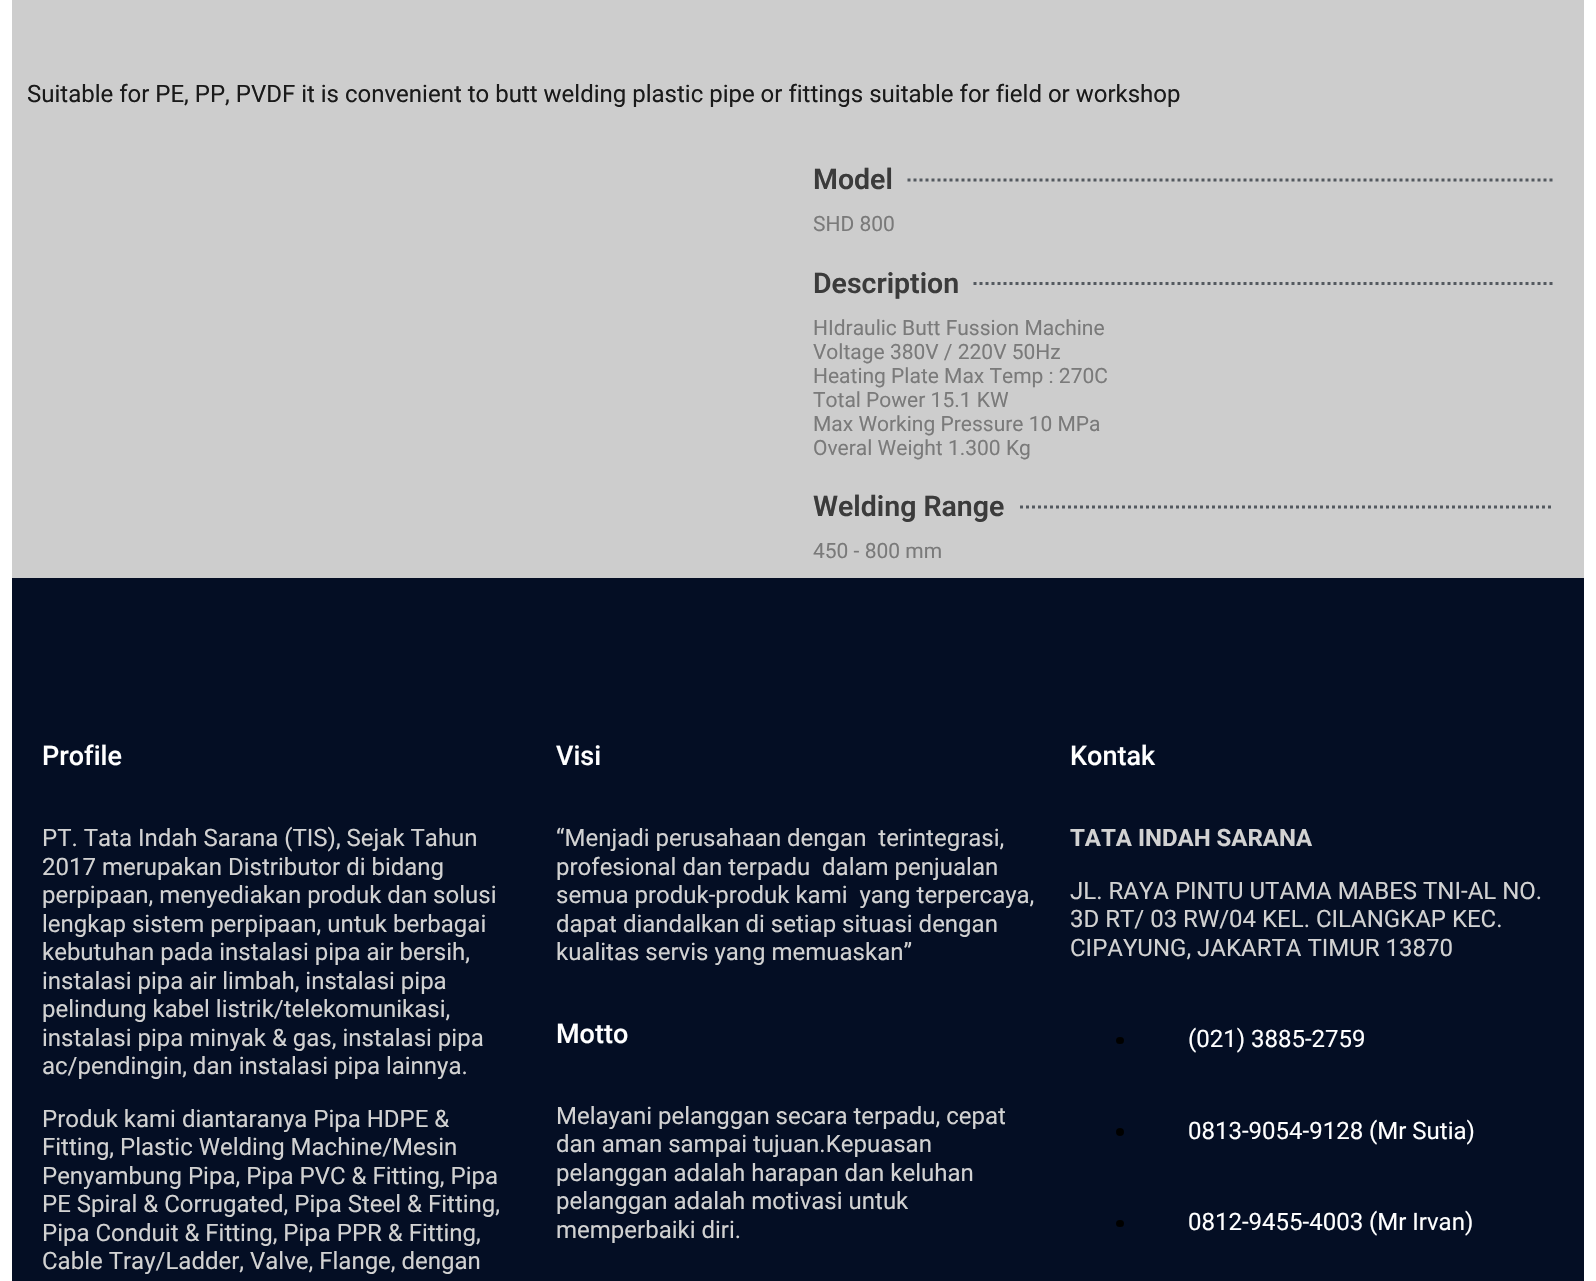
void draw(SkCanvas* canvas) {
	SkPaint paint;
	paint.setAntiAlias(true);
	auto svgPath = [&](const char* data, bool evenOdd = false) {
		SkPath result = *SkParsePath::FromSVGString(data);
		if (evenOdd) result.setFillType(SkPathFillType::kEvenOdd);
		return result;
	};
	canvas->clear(0xffffffff);
	paint.setColor(0xffcdcdcd);
	canvas->drawRect(SkRect::MakeXYWH(12, 0, 1572, 578), paint);
	SkFont f1(fontMgr->matchFamilyStyle("Roboto", SkFontStyle::Normal()), 24);
	f1.setSubpixel(true);
	paint.setColor(0xff1a1a1a);
	canvas->drawString("Suitable for PE, PP, PVDF it is convenient to butt welding plastic pipe or fittings suitable for field or workshop", 27, 102, f1, paint);
	SkFont f2(fontMgr->matchFamilyStyle("Roboto", SkFontStyle(600, SkFontStyle::kNormal_Width, SkFontStyle::kUpright_Slant)), 28.5);
	f2.setSubpixel(true);
	paint.setColor(0xff3b3b3b);
	canvas->drawString("Model", 813, 189, f2, paint);
	paint.setStroke(true);
	paint.setStrokeWidth(3);
	paint.setColor(0xff54595f);
	paint.setPathEffect(SkDashPathEffect::Make({{3, 3}}, 0));
	canvas->drawPath(svgPath("M907.5 180H1554"), paint);
	paint.setPathEffect(nullptr);
	SkFont f3(fontMgr->matchFamilyStyle("Roboto", SkFontStyle::Normal()), 21);
	f3.setSubpixel(true);
	paint.setStroke(false);
	paint.setColor(0xff7a7a7a);
	canvas->drawString("SHD 800", 813, 231, f3, paint);
	paint.setColor(0xff3b3b3b);
	canvas->drawString("Description", 813, 293, f2, paint);
	paint.setStroke(true);
	paint.setColor(0xff54595f);
	paint.setPathEffect(SkDashPathEffect::Make({{3, 3}}, 0));
	canvas->drawPath(svgPath("M973.5 283.5H1554"), paint);
	paint.setPathEffect(nullptr);
	paint.setStroke(false);
	paint.setColor(0xff7a7a7a);
	canvas->drawString("HIdraulic Butt Fussion Machine", 813, 335, f3, paint);
	canvas->drawString("Voltage 380V / 220V 50Hz", 813, 359, f3, paint);
	canvas->drawString("Heating Plate Max Temp : 270C", 813, 383, f3, paint);
	canvas->drawString("Total Power 15.1 KW", 813, 407, f3, paint);
	canvas->drawString("Max Working Pressure 10 MPa", 813, 431, f3, paint);
	canvas->drawString("Overal Weight 1.300 Kg", 813, 455, f3, paint);
	paint.setColor(0xff3b3b3b);
	canvas->drawString("Welding Range", 813, 516, f2, paint);
	paint.setStroke(true);
	paint.setColor(0xff54595f);
	paint.setPathEffect(SkDashPathEffect::Make({{3, 3}}, 0));
	canvas->drawPath(svgPath("M1020 507H1554"), paint);
	paint.setPathEffect(nullptr);
	paint.setStroke(false);
	paint.setColor(0xff7a7a7a);
	canvas->drawString("450 - 800 mm", 813, 558, f3, paint);
	paint.setColor(0xff040e24);
	canvas->drawRect(SkRect::MakeXYWH(12, 578, 1572, 703), paint);
	SkFont f4(fontMgr->matchFamilyStyle("Roboto", SkFontStyle(500, SkFontStyle::kNormal_Width, SkFontStyle::kUpright_Slant)), 27);
	f4.setSubpixel(true);
	paint.setColor(0xffffffff);
	canvas->drawString("Profile", 42, 765, f4, paint);
	paint.setColor(0xffd2d2d2);
	canvas->drawString("PT. Tata Indah Sarana (TIS), Sejak Tahun", 42, 846, f1, paint);
	canvas->drawString("2017 merupakan Distributor di bidang", 42, 875, f1, paint);
	canvas->drawString("perpipaan, menyediakan produk dan solusi", 42, 903, f1, paint);
	canvas->drawString("lengkap sistem perpipaan, untuk berbagai", 42, 932, f1, paint);
	canvas->drawString("kebutuhan pada instalasi pipa air bersih,", 42, 960, f1, paint);
	canvas->drawString("instalasi pipa air limbah, instalasi pipa", 42, 989, f1, paint);
	canvas->drawString("pelindung kabel listrik/telekomunikasi,", 42, 1017, f1, paint);
	canvas->drawString("instalasi pipa minyak & gas, instalasi pipa", 42, 1046, f1, paint);
	canvas->drawString("ac/pendingin, dan instalasi pipa lainnya.", 42, 1074, f1, paint);
	canvas->drawString("Produk kami diantaranya Pipa HDPE &", 42, 1127, f1, paint);
	canvas->drawString("Fitting, Plastic Welding Machine/Mesin", 42, 1155, f1, paint);
	canvas->drawString("Penyambung Pipa, Pipa PVC & Fitting, Pipa", 42, 1184, f1, paint);
	canvas->drawString("PE Spiral & Corrugated, Pipa Steel & Fitting,", 42, 1212, f1, paint);
	canvas->drawString("Pipa Conduit & Fitting, Pipa PPR & Fitting,", 42, 1241, f1, paint);
	canvas->drawString("Cable Tray/Ladder, Valve, Flange, dengan", 42, 1269, f1, paint);
	paint.setColor(0xffffffff);
	canvas->drawString("Visi", 556, 765, f4, paint);
	paint.setColor(0xffd2d2d2);
	canvas->drawString("“Menjadi perusahaan dengan  terintegrasi,", 556, 846, f1, paint);
	canvas->drawString("profesional dan terpadu  dalam penjualan", 556, 875, f1, paint);
	canvas->drawString("semua produk-produk kami  yang terpercaya,", 556, 903, f1, paint);
	canvas->drawString("dapat diandalkan di setiap situasi dengan", 556, 932, f1, paint);
	canvas->drawString("kualitas servis yang memuaskan”", 556, 960, f1, paint);
	paint.setColor(0xffffffff);
	canvas->drawString("Motto", 556, 1043, f4, paint);
	paint.setColor(0xffd2d2d2);
	canvas->drawString("Melayani pelanggan secara terpadu, cepat", 556, 1124, f1, paint);
	canvas->drawString("dan aman sampai tujuan.Kepuasan", 556, 1152, f1, paint);
	canvas->drawString("pelanggan adalah harapan dan keluhan", 556, 1181, f1, paint);
	canvas->drawString("pelanggan adalah motivasi untuk", 556, 1209, f1, paint);
	canvas->drawString("memperbaiki diri.", 556, 1238, f1, paint);
	paint.setColor(0xffffffff);
	canvas->drawString("Kontak", 1070, 765, f4, paint);
	SkFont f5(fontMgr->matchFamilyStyle("Roboto", SkFontStyle::Bold()), 24);
	f5.setSubpixel(true);
	paint.setColor(0xffd2d2d2);
	canvas->drawString("TATA INDAH SARANA", 1070, 846, f5, paint);
	canvas->drawString("JL. RAYA PINTU UTAMA MABES TNI-AL NO.", 1070, 899, f1, paint);
	canvas->drawString("3D RT/ 03 RW/04 KEL. CILANGKAP KEC.", 1070, 927, f1, paint);
	canvas->drawString("CIPAYUNG, JAKARTA TIMUR 13870", 1070, 956, f1, paint);
	paint.setColor(0xff000000);
	canvas->drawRoundRect(SkRect::MakeXYWH(1116, 1037, 8, 7), 3.5, 3.5, paint);
	paint.setColor(0xffffffff);
	canvas->drawString("(021) 3885-2759", 1188, 1047, f1, paint);
	paint.setColor(0xff000000);
	canvas->drawCircle(1120, 1132, 4, paint);
	paint.setColor(0xffffffff);
	canvas->drawString("0813-9054-9128 (Mr Sutia)", 1188, 1139, f1, paint);
	paint.setColor(0xff000000);
	canvas->drawRoundRect(SkRect::MakeXYWH(1116, 1220, 8, 7), 3.5, 3.5, paint);
	paint.setColor(0xffffffff);
	canvas->drawString("0812-9455-4003 (Mr Irvan)", 1188, 1230, f1, paint);
}
